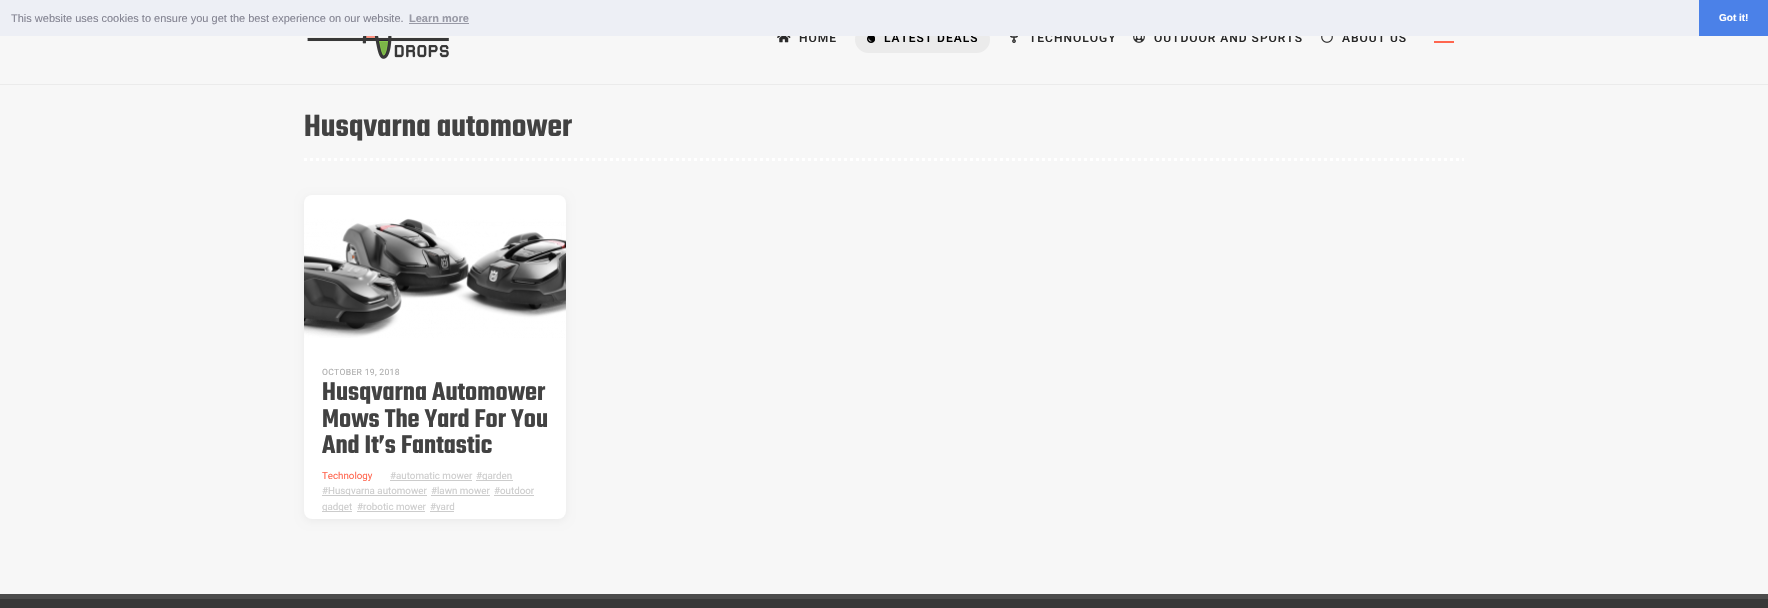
void draw(SkCanvas* canvas) {
	SkPaint paint;
	paint.setAntiAlias(true);
	auto spacedText = [&](const char* s, float x, float y, const SkFont& font, const SkPaint& ink, float letter, float word) {
		std::vector<SkGlyphID> glyphs(font.countText(s, strlen(s), SkTextEncoding::kUTF8));
		std::vector<float> xs(glyphs.size());
		font.textToGlyphs(s, strlen(s), SkTextEncoding::kUTF8, glyphs);
		font.getXPos(glyphs, xs, x);
		float extra = 0;
		for (size_t i = 0; i < glyphs.size(); i++) {
			xs[i] += extra;
			extra += letter + word * (glyphs[i] == font.unicharToGlyph(' '));
		}
		canvas->drawTextBlob(SkTextBlob::MakeFromPosHGlyphs(glyphs, xs, y, font), 0, 0, ink);
	};
	auto svgPath = [&](const char* data, bool evenOdd = false) {
		SkPath result = *SkParsePath::FromSVGString(data);
		if (evenOdd) result.setFillType(SkPathFillType::kEvenOdd);
		return result;
	};
	canvas->clear(0xfff7f7f7);
	SkFont f1(fontMgr->matchFamilyStyle("Roboto", SkFontStyle(500, SkFontStyle::kNormal_Width, SkFontStyle::kUpright_Slant)), 12);
	f1.setSubpixel(true);
	paint.setColor(0xff292929);
	spacedText("HOME", 799, 42, f1, paint, 1, 0);
	paint.setColor(0xffebebeb);
	canvas->drawRoundRect(SkRect::MakeXYWH(855, 26, 135, 27), 13.5, 13.5, paint);
	paint.setColor(0xff000000);
	spacedText("LATEST DEALS", 884, 42, f1, paint, 1, 0);
	paint.setColor(0xff292929);
	spacedText("TECHNOLOGY", 1029, 42, f1, paint, 1, 0);
	spacedText("OUTDOOR AND SPORTS", 1154, 42, f1, paint, 1, 0);
	spacedText("ABOUT US", 1342, 42, f1, paint, 1, 0);
	paint.setColor(0xffedeff5);
	canvas->drawRect(SkRect::MakeXYWH(0, 0, 1699, 36), paint);
	SkFont f2(fontMgr->matchFamilyStyle("Liberation Sans", SkFontStyle::Normal()), 11);
	f2.setSubpixel(true);
	paint.setColor(0xff838391);
	canvas->drawString("This website uses cookies to ensure you get the best experience on our website.", 11, 22, f2, paint);
	SkFont f3(fontMgr->matchFamilyStyle("Liberation Sans", SkFontStyle::Bold()), 11);
	f3.setSubpixel(true);
	paint.setColor(0xff9899a5);
	canvas->drawString("Learn more", 409, 22, f3, paint);
	canvas->drawRect(SkRect::MakeXYWH(409, 23, 60, 1), paint);
	paint.setColor(0xff4b81e8);
	canvas->drawRect(SkRect::MakeXYWH(1699, 0, 69, 36), paint);
	SkFont f4(fontMgr->matchFamilyStyle("Liberation Sans", SkFontStyle::Bold()), 10);
	f4.setSubpixel(true);
	paint.setColor(0xffffffff);
	canvas->drawString("Got it!", 1719, 21, f4, paint);
	paint.setColor(0xffebebeb);
	canvas->drawRect(SkRect::MakeXYWH(0, 84, 1768, 1), paint);
	canvas->drawImageRect(SkImages::DeferredFromEncodedData(SkData::MakeFromFileName("img1.png")), SkRect::MakeXYWH(307, 36, 142, 23), SkSamplingOptions());
	canvas->drawImageRect(SkImages::DeferredFromEncodedData(SkData::MakeFromFileName("img2.png")), SkRect::MakeXYWH(777, 36, 14, 7), SkSamplingOptions());
	canvas->drawImageRect(SkImages::DeferredFromEncodedData(SkData::MakeFromFileName("img3.png")), SkRect::MakeXYWH(867, 36, 8, 7), SkSamplingOptions());
	canvas->drawImageRect(SkImages::DeferredFromEncodedData(SkData::MakeFromFileName("img4.png")), SkRect::MakeXYWH(1010, 36, 8, 7), SkSamplingOptions());
	canvas->drawImageRect(SkImages::DeferredFromEncodedData(SkData::MakeFromFileName("img5.png")), SkRect::MakeXYWH(1133, 36, 12, 7), SkSamplingOptions());
	canvas->drawImageRect(SkImages::DeferredFromEncodedData(SkData::MakeFromFileName("img6.png")), SkRect::MakeXYWH(1321, 36, 12, 7), SkSamplingOptions());
	paint.setColor(0xffff664f);
	canvas->drawRect(SkRect::MakeXYWH(1434, 41, 20, 2), paint);
	paint.setStroke(true);
	paint.setStrokeWidth(3);
	paint.setColor(0xffffffff);
	paint.setPathEffect(SkDashPathEffect::Make({{3, 3}}, 0));
	canvas->drawPath(svgPath("M304 159.5H1464"), paint);
	paint.setPathEffect(nullptr);
	SkFont f5(fontMgr->matchFamilyStyle("Teko", SkFontStyle(600, SkFontStyle::kNormal_Width, SkFontStyle::kUpright_Slant)), 33.5);
	f5.setSubpixel(true);
	paint.setStroke(false);
	paint.setColor(0xff424242);
	canvas->drawString("Husqvarna automower", 304, 136, f5, paint);
	paint.setColor(0x0d000000);
	paint.setMaskFilter(SkMaskFilter::MakeBlur(kNormal_SkBlurStyle, 4));
	canvas->drawRoundRect(SkRect::MakeXYWH(304, 197, 262, 324), 8, 8, paint);
	paint.setMaskFilter(nullptr);
	paint.setColor(0xffffffff);
	canvas->drawRoundRect(SkRect::MakeXYWH(304, 195, 262, 324), 8, 8, paint);
	canvas->drawImageRect(SkImages::DeferredFromEncodedData(SkData::MakeFromFileName("img7.png")), SkRect::MakeXYWH(304, 218, 262, 120), SkSamplingOptions());
	SkFont f6(fontMgr->matchFamilyStyle("Roboto", SkFontStyle::Normal()), 8.6);
	f6.setSubpixel(true);
	paint.setColor(0xffadadad);
	spacedText("OCTOBER 19, 2018", 322, 375, f6, paint, 0.3, 0);
	SkFont f7(fontMgr->matchFamilyStyle("Teko", SkFontStyle(600, SkFontStyle::kNormal_Width, SkFontStyle::kUpright_Slant)), 27.75);
	f7.setSubpixel(true);
	paint.setColor(0xff424242);
	canvas->drawString("Husqvarna Automower", 322, 400, f7, paint);
	canvas->drawString("Mows The Yard For You", 322, 427, f7, paint);
	canvas->drawString("And It’s Fantastic", 322, 453, f7, paint);
	SkFont f8(fontMgr->matchFamilyStyle("Roboto", SkFontStyle::Normal()), 9.75);
	f8.setSubpixel(true);
	paint.setColor(0xffff664f);
	canvas->drawString("Technology", 322, 479, f8, paint);
	paint.setColor(0xffcccccc);
	canvas->drawString("#automatic mower", 390, 479, f8, paint);
	canvas->drawRect(SkRect::MakeXYWH(390, 480, 82, 1), paint);
	canvas->drawRect(SkRect::MakeXYWH(476, 480, 37, 1), paint);
	canvas->drawString("#garden", 476, 479, f8, paint);
	canvas->drawRect(SkRect::MakeXYWH(322, 495, 105, 1), paint);
	canvas->drawString("#Husqvarna automower", 322, 494, f8, paint);
	canvas->drawString("#lawn mower", 431, 494, f8, paint);
	canvas->drawRect(SkRect::MakeXYWH(431, 495, 59, 1), paint);
	canvas->drawString("#outdoor", 494, 494, f8, paint);
	canvas->drawRect(SkRect::MakeXYWH(494, 495, 40, 1), paint);
	canvas->drawRect(SkRect::MakeXYWH(322, 511, 30, 1), paint);
	canvas->drawString("gadget", 322, 510, f8, paint);
	canvas->drawString("#robotic mower", 357, 510, f8, paint);
	canvas->drawRect(SkRect::MakeXYWH(357, 511, 68, 1), paint);
	canvas->drawRect(SkRect::MakeXYWH(430, 511, 24, 1), paint);
	canvas->drawString("#yard", 430, 510, f8, paint);
	paint.setColor(0xff383838);
	canvas->drawRect(SkRect::MakeXYWH(0, 599, 1768, 9), paint);
	paint.setColor(0xff4c4c4c);
	canvas->drawRect(SkRect::MakeXYWH(0, 594, 1768, 5), paint);
}
